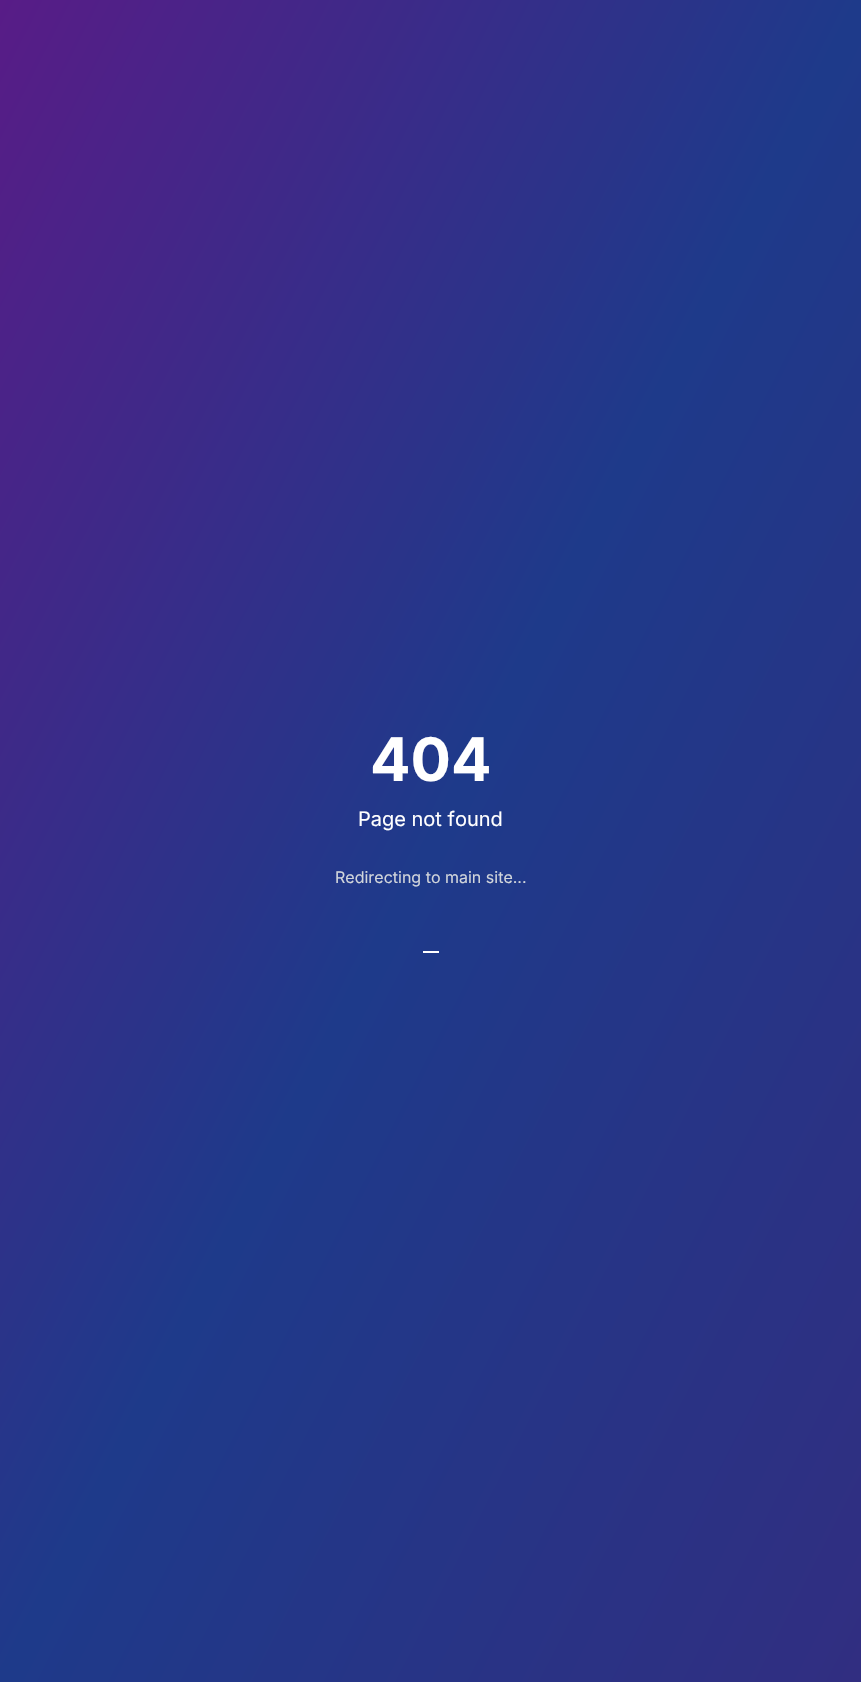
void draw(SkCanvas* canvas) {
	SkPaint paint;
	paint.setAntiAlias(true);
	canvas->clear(0xffffffff);
	{
		const SkColor colors[] = {0xff581c87, 0xff1e3a8a, 0xff312e81};
		const float stops[] = {0, 0.5, 1};
		const SkPoint ends[] = {{-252, 492}, {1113, 1190}};
		paint.setShader(SkGradientShader::MakeLinear(ends, colors, stops, 3, SkTileMode::kClamp));
		paint.setAlpha(255);
	}
	canvas->drawRect(SkRect::MakeXYWH(0, 0, 861, 1682), paint);
	SkFont f1(fontMgr->matchFamilyStyle("Inter", SkFontStyle::Bold()), 60);
	f1.setSubpixel(true);
	paint.setShader(nullptr);
	paint.setColor(0xffffffff);
	canvas->drawString("404", 370, 781, f1, paint);
	SkFont f2(fontMgr->matchFamilyStyle("Inter", SkFontStyle::Normal()), 20);
	f2.setSubpixel(true);
	canvas->drawString("Page not found", 358, 826, f2, paint);
	SkFont f3(fontMgr->matchFamilyStyle("Inter", SkFontStyle::Normal()), 16);
	f3.setSubpixel(true);
	paint.setColor(0xffd1d5db);
	canvas->drawString("Redirecting to main site...", 335, 883, f3, paint);
	paint.setColor(0xffffffff);
	canvas->drawRect(SkRect::MakeXYWH(423, 951, 16, 2), paint);
}
